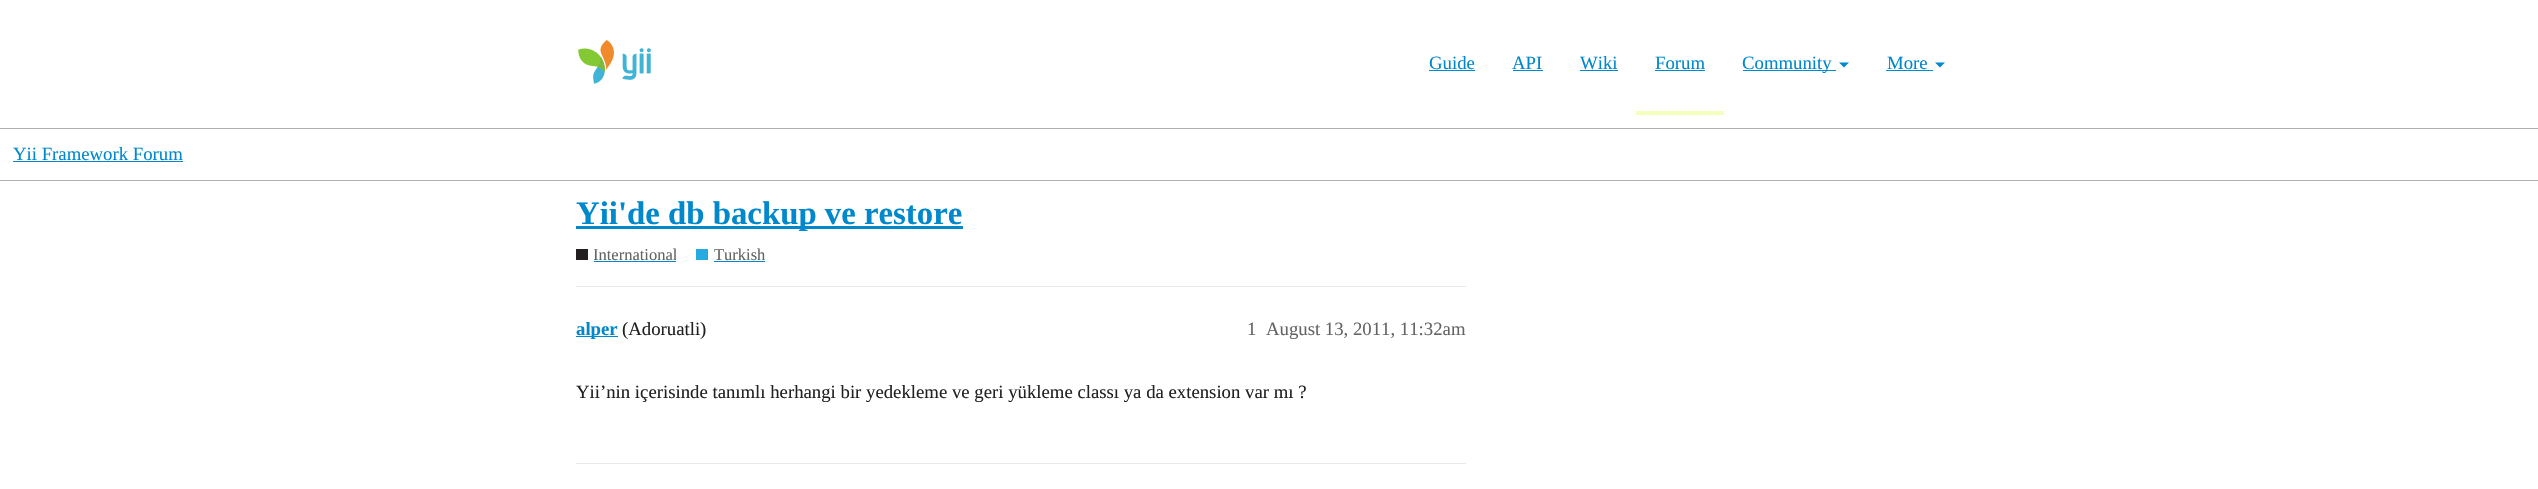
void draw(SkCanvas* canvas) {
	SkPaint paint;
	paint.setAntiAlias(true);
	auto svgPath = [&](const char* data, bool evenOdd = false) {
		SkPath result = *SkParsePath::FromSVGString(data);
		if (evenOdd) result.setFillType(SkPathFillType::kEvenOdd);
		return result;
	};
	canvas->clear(0xffffffff);
	paint.setColor(0xffafafaf);
	canvas->drawRect(SkRect::MakeXYWH(0, 128, 2538, 1), paint);
	canvas->drawImageRect(SkImages::DeferredFromEncodedData(SkData::MakeFromFileName("img1.png")), SkRect::MakeXYWH(578, 40, 73, 44), SkSamplingOptions());
	SkFont f1(fontMgr->matchFamilyStyle("Liberation Serif", SkFontStyle::Normal()), 18.75);
	f1.setSubpixel(true);
	paint.setColor(0xff0088cc);
	canvas->drawString("Guide", 1429, 69, f1, paint);
	canvas->drawRect(SkRect::MakeXYWH(1429, 70, 46, 1), paint);
	canvas->drawString("API", 1512, 69, f1, paint);
	canvas->drawRect(SkRect::MakeXYWH(1513, 70, 30, 1), paint);
	canvas->drawString("Wiki", 1580, 69, f1, paint);
	canvas->drawRect(SkRect::MakeXYWH(1580, 70, 38, 1), paint);
	paint.setColor(0xfff3ffbd);
	canvas->drawRect(SkRect::MakeXYWH(1636, 111, 88, 4), paint);
	paint.setColor(0xff0088cc);
	canvas->drawString("Forum", 1655, 69, f1, paint);
	canvas->drawRect(SkRect::MakeXYWH(1655, 70, 50, 1), paint);
	canvas->drawRect(SkRect::MakeXYWH(1743, 70, 93, 1), paint);
	canvas->drawString("Community", 1742, 69, f1, paint);
	canvas->drawPath(svgPath("M1839 62.5H1849L1844 67.5Z"), paint);
	canvas->drawString("More", 1887, 69, f1, paint);
	canvas->drawRect(SkRect::MakeXYWH(1886, 70, 47, 1), paint);
	canvas->drawPath(svgPath("M1935 62.5H1945L1940 67.5Z"), paint);
	paint.setColor(0xffafafaf);
	canvas->drawRect(SkRect::MakeXYWH(0, 180, 2538, 1), paint);
	paint.setColor(0xff0088cc);
	canvas->drawString("Yii Framework Forum", 13, 160, f1, paint);
	canvas->drawRect(SkRect::MakeXYWH(13, 161, 170, 1), paint);
	canvas->drawRect(SkRect::MakeXYWH(576, 226, 387, 3), paint);
	SkFont f2(fontMgr->matchFamilyStyle("Liberation Serif", SkFontStyle::Bold()), 32.8);
	f2.setSubpixel(true);
	canvas->drawString("Yii'de db backup ve restore", 576, 224, f2, paint);
	paint.setColor(0xff231f20);
	canvas->drawRect(SkRect::MakeXYWH(576, 249, 12, 11), paint);
	canvas->save();
	canvas->clipRect(SkRect::MakeXYWH(594, 244, 82, 22));
	SkFont f3(fontMgr->matchFamilyStyle("Liberation Serif", SkFontStyle::Normal()), 16.5);
	f3.setSubpixel(true);
	paint.setColor(0xff646464);
	canvas->drawString("International", 593, 260, f3, paint);
	canvas->restore();
	paint.setColor(0xff0088cc);
	canvas->drawRect(SkRect::MakeXYWH(594, 261, 82, 1), paint);
	paint.setColor(0xff25aae2);
	canvas->drawRect(SkRect::MakeXYWH(696, 249, 12, 11), paint);
	paint.setColor(0xff646464);
	canvas->drawString("Turkish", 714, 260, f3, paint);
	paint.setColor(0xff0088cc);
	canvas->drawRect(SkRect::MakeXYWH(714, 261, 51, 1), paint);
	paint.setColor(0xffe9e9e9);
	canvas->drawRect(SkRect::MakeXYWH(576, 286, 890, 1), paint);
	paint.setColor(0xff0088cc);
	canvas->drawRect(SkRect::MakeXYWH(576, 336, 42, 1), paint);
	SkFont f4(fontMgr->matchFamilyStyle("Liberation Serif", SkFontStyle::Bold()), 18.75);
	f4.setSubpixel(true);
	canvas->drawString("alper", 576, 335, f4, paint);
	paint.setColor(0xff222222);
	canvas->drawString("(Adoruatli)", 622, 335, f1, paint);
	paint.setColor(0xff646464);
	canvas->drawString("1", 1247, 335, f1, paint);
	canvas->drawString("August 13, 2011, 11:32am", 1266, 335, f1, paint);
	paint.setColor(0xff222222);
	canvas->drawString("Yii’nin içerisinde tanımlı herhangi bir yedekleme ve geri yükleme classı ya da extension var mı ?", 576, 398, f1, paint);
	paint.setColor(0xffe9e9e9);
	canvas->drawRect(SkRect::MakeXYWH(576, 463, 890, 1), paint);
}
